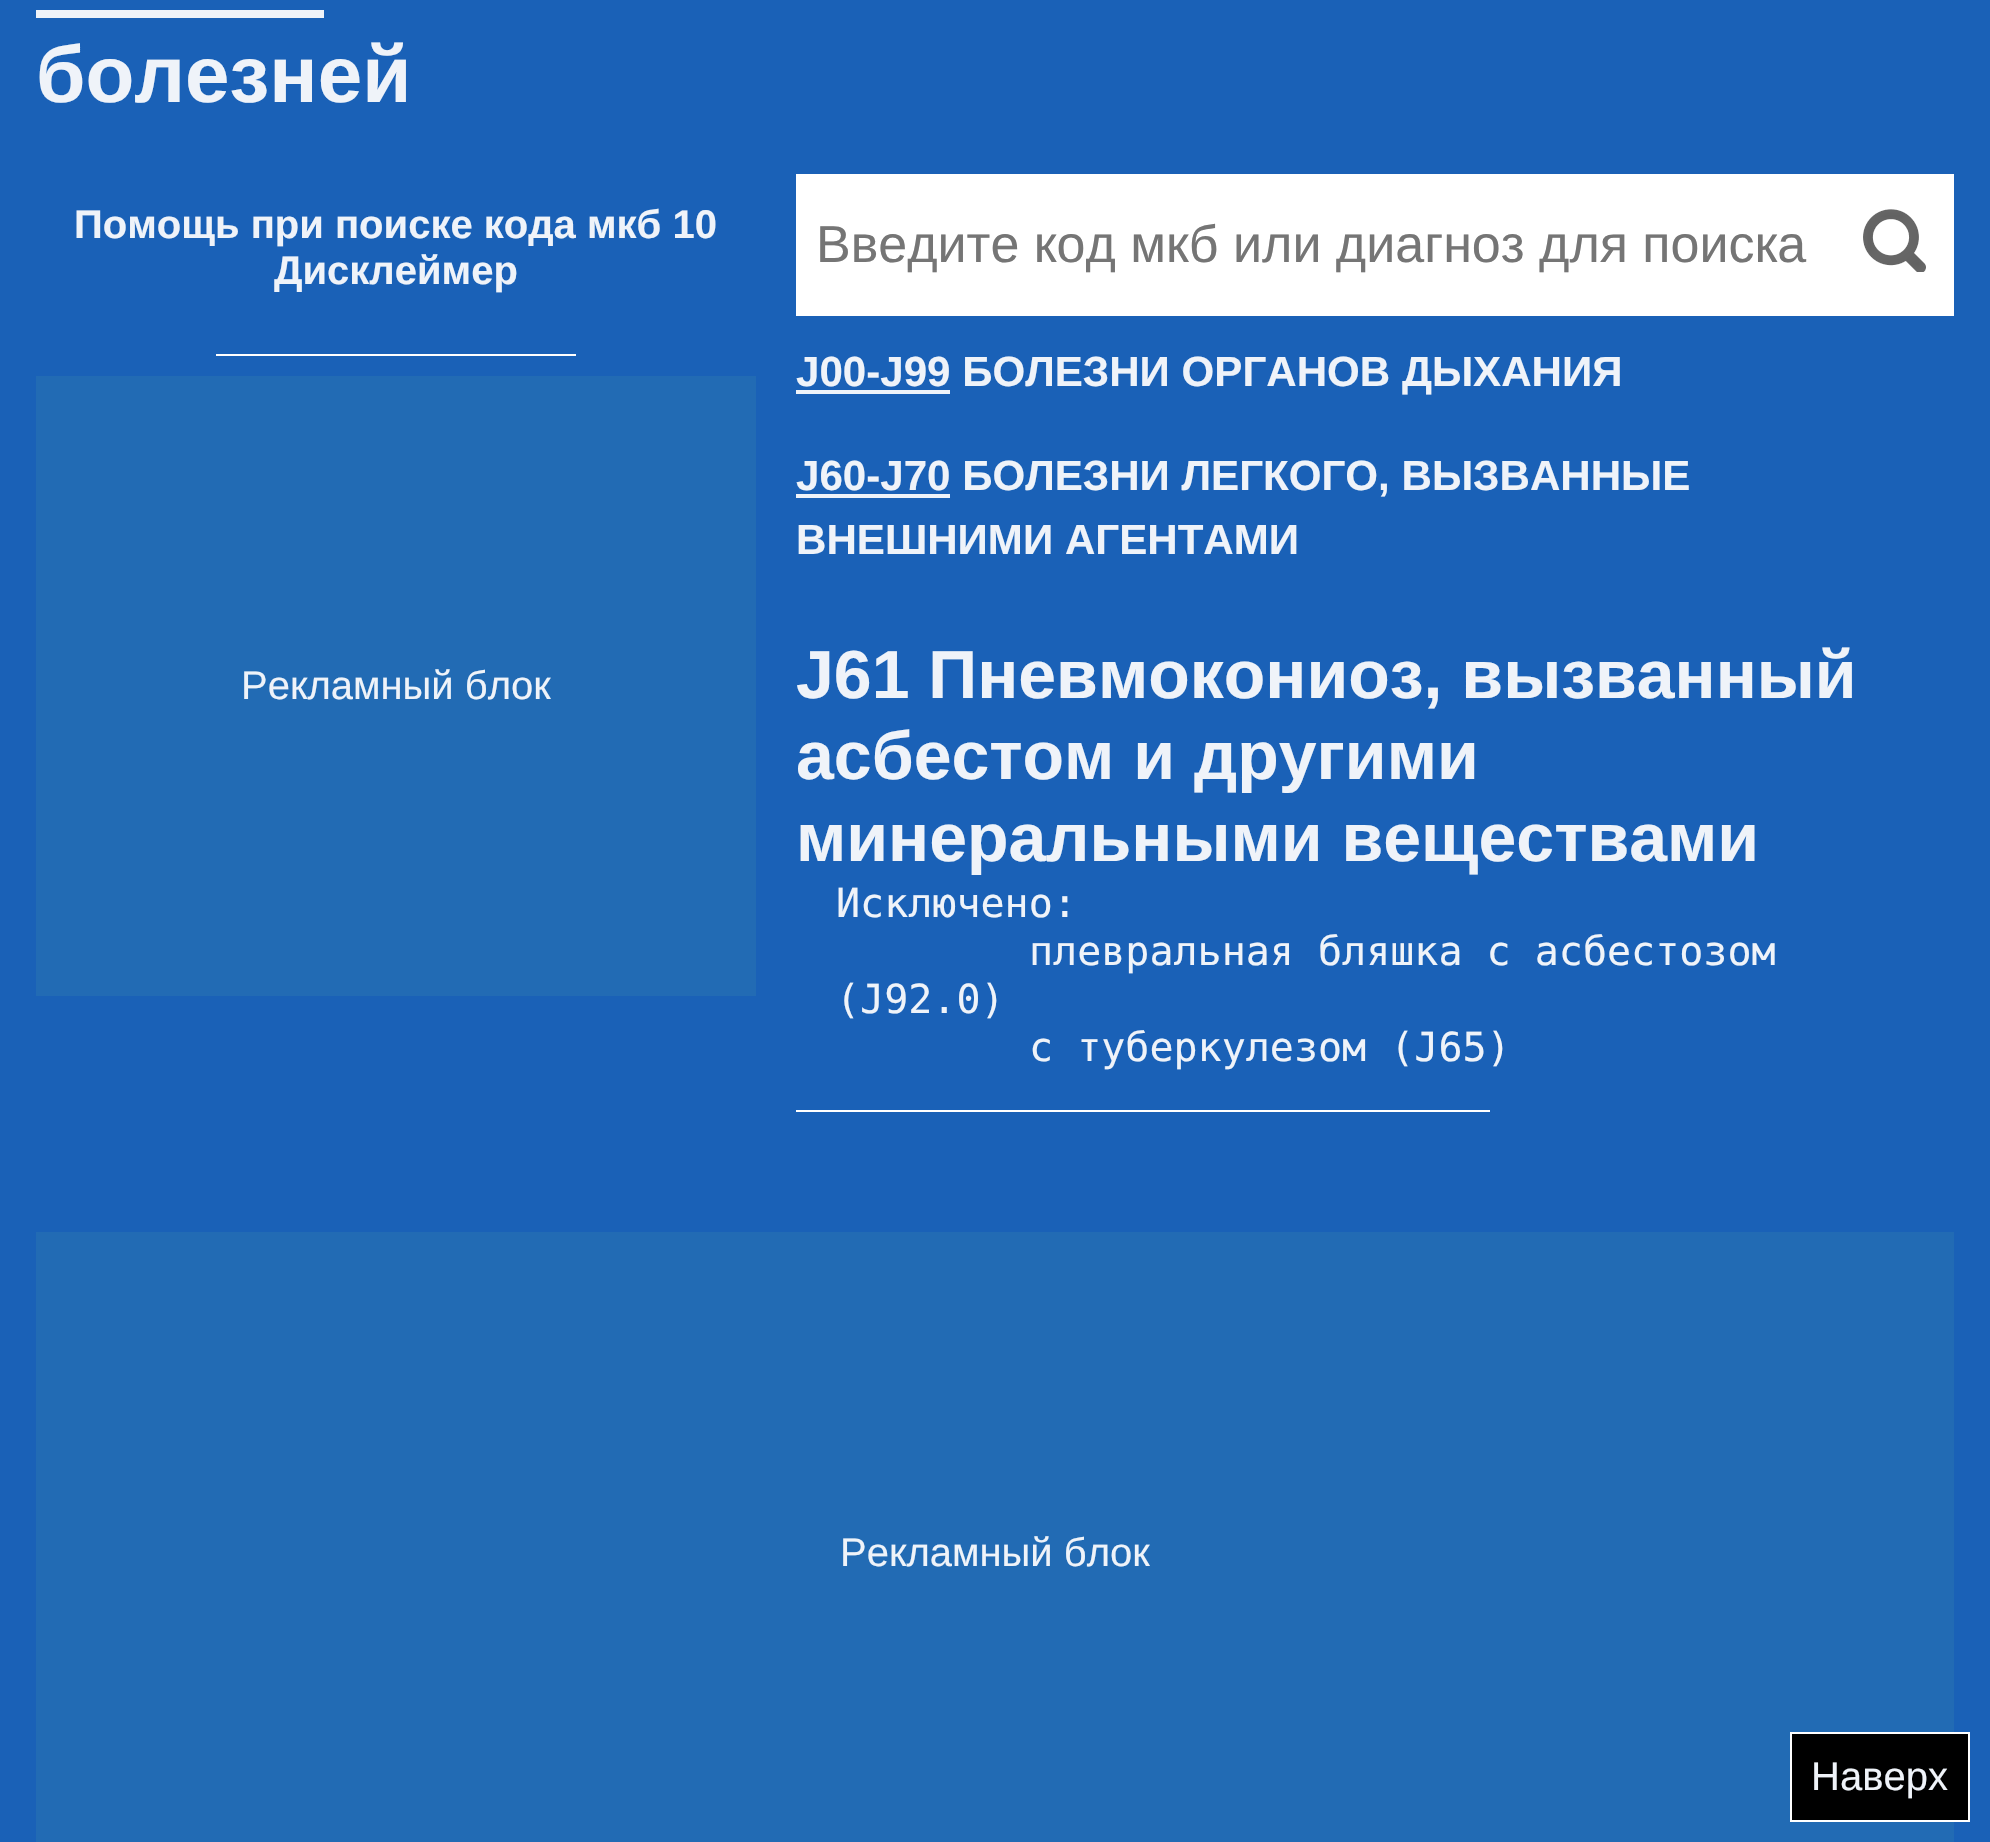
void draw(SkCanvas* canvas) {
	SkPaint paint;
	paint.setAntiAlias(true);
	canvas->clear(0xff1a61b7);
	SkFont f1(fontMgr->matchFamilyStyle("Liberation Sans", SkFontStyle::Bold()), 80);
	f1.setSubpixel(true);
	paint.setColor(0xffeff3f9);
	canvas->drawString("болезней", 36, 102, f1, paint);
	canvas->drawRect(SkRect::MakeXYWH(36, 10, 288, 8), paint);
	SkFont f2(fontMgr->matchFamilyStyle("Liberation Sans", SkFontStyle::Bold()), 40);
	f2.setSubpixel(true);
	canvas->drawString("Помощь при поиске кода мкб 10", 74, 238, f2, paint);
	canvas->drawString("Дисклеймер", 274, 284, f2, paint);
	paint.setColor(0xffffffff);
	canvas->drawRect(SkRect::MakeXYWH(216, 354, 360, 2), paint);
	paint.setColor(0xff226bb4);
	canvas->drawRect(SkRect::MakeXYWH(36, 376, 720, 620), paint);
	SkFont f3(fontMgr->matchFamilyStyle("Liberation Sans", SkFontStyle::Normal()), 40);
	f3.setSubpixel(true);
	paint.setColor(0xffeff3f9);
	canvas->drawString("Рекламный блок", 241, 699, f3, paint);
	paint.setColor(0xffffffff);
	canvas->drawRect(SkRect::MakeXYWH(796, 174, 1158, 142), paint);
	SkFont f4(fontMgr->matchFamilyStyle("Liberation Sans", SkFontStyle::Normal()), 52);
	f4.setSubpixel(true);
	paint.setColor(0xff757575);
	canvas->drawString("Введите код мкб или диагноз для поиска", 816, 262, f4, paint);
	canvas->drawImageRect(SkImages::DeferredFromEncodedData(SkData::MakeFromFileName("img1.png")), SkRect::MakeXYWH(1863, 209, 63, 63), SkSamplingOptions());
	paint.setColor(0xffeff3f9);
	canvas->drawRect(SkRect::MakeXYWH(796, 390, 154, 4), paint);
	SkFont f5(fontMgr->matchFamilyStyle("Liberation Sans", SkFontStyle::Bold()), 42.1);
	f5.setSubpixel(true);
	canvas->drawString("J00-J99 БОЛЕЗНИ ОРГАНОВ ДЫХАНИЯ", 796, 386, f5, paint);
	canvas->drawRect(SkRect::MakeXYWH(796, 494, 154, 4), paint);
	canvas->drawString("J60-J70 БОЛЕЗНИ ЛЕГКОГО, ВЫЗВАННЫЕ", 796, 490, f5, paint);
	canvas->drawString("ВНЕШНИМИ АГЕНТАМИ", 796, 554, f5, paint);
	SkFont f6(fontMgr->matchFamilyStyle("Liberation Sans", SkFontStyle::Bold()), 68);
	f6.setSubpixel(true);
	canvas->drawString("J61 Пневмокониоз, вызванный", 796, 698, f6, paint);
	canvas->drawString("асбестом и другими", 796, 779, f6, paint);
	canvas->drawString("минеральными веществами", 796, 861, f6, paint);
	SkFont f7(fontMgr->matchFamilyStyle("DejaVu Sans Mono", SkFontStyle::Normal()), 40);
	f7.setSubpixel(true);
	canvas->drawString("Исключено:", 836, 917, f7, paint);
	canvas->drawString("плевральная бляшка с асбестозом", 1029, 965, f7, paint);
	canvas->drawString("(J92.0)", 836, 1013, f7, paint);
	canvas->drawString("с туберкулезом (J65)", 1029, 1061, f7, paint);
	paint.setColor(0xffffffff);
	canvas->drawRect(SkRect::MakeXYWH(796, 1110, 694, 2), paint);
	paint.setColor(0xff226bb4);
	canvas->drawRect(SkRect::MakeXYWH(36, 1232, 1918, 610), paint);
	paint.setColor(0xffeff3f9);
	canvas->drawString("Рекламный блок", 840, 1566, f3, paint);
	paint.setColor(0xff000000);
	canvas->drawRect(SkRect::MakeXYWH(1791, 1733, 178, 88), paint);
	paint.setStroke(true);
	paint.setStrokeWidth(2);
	paint.setColor(0xffffffff);
	canvas->drawRect(SkRect::MakeXYWH(1791, 1733, 178, 88), paint);
	paint.setStroke(false);
	paint.setColor(0xffeff3f9);
	canvas->drawString("Наверх", 1811, 1790, f3, paint);
}
